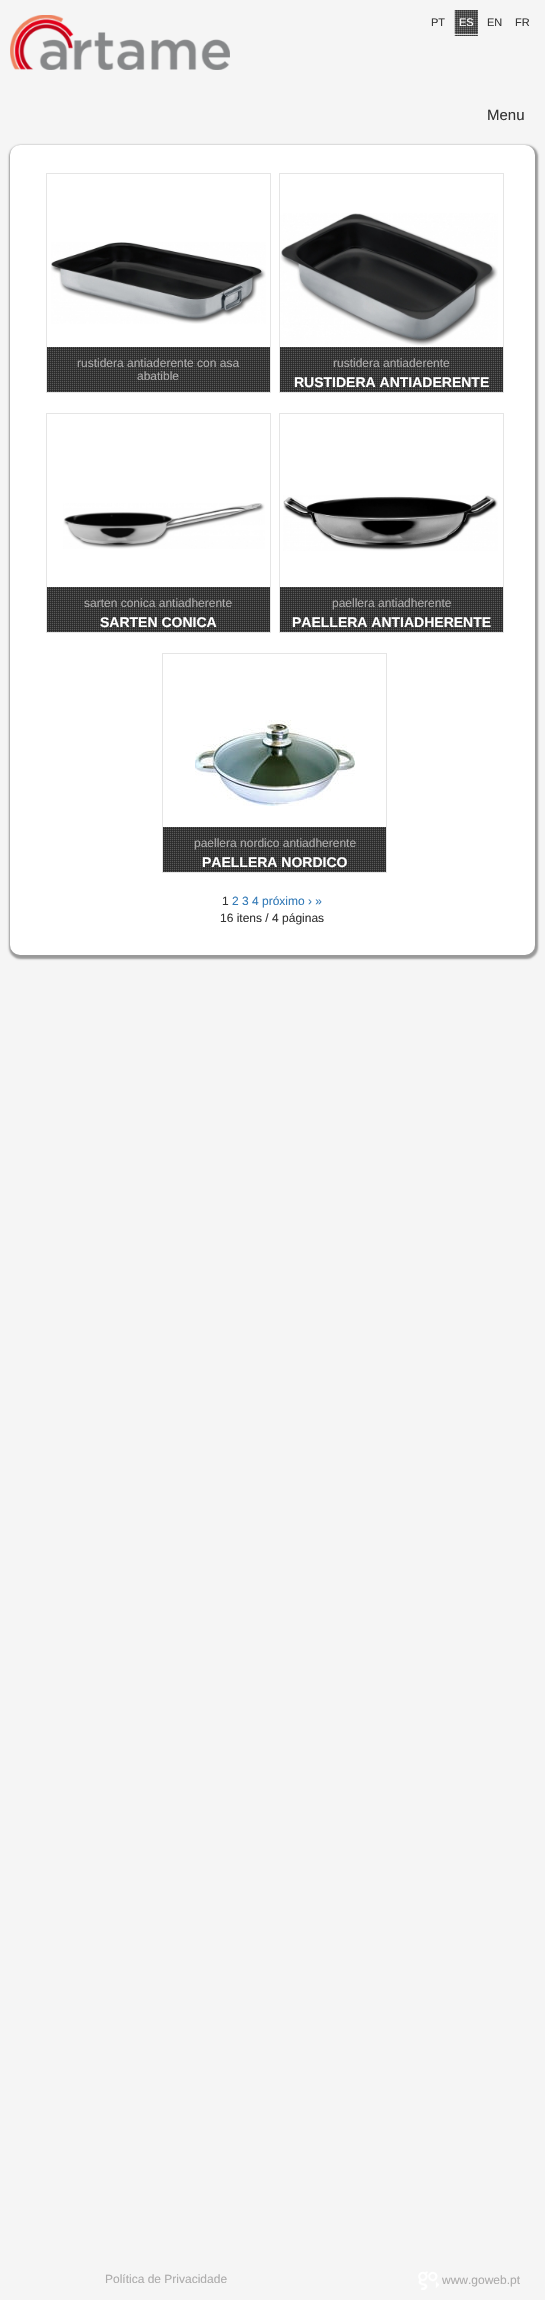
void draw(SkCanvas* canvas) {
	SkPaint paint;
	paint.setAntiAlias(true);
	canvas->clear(0xfff5f5f5);
	canvas->drawImageRect(SkImages::DeferredFromEncodedData(SkData::MakeFromFileName("img1.png")), SkRect::MakeXYWH(10, 15, 220, 55), SkSamplingOptions());
	SkFont f1(fontMgr->matchFamilyStyle("Liberation Sans", SkFontStyle::Normal()), 11);
	f1.setSubpixel(true);
	paint.setColor(0xff343434);
	canvas->drawString("PT", 431, 26, f1, paint);
	canvas->drawImageRect(SkImages::DeferredFromEncodedData(SkData::MakeFromFileName("img2.png")), SkRect::MakeXYWH(454, 10, 24, 26), SkSamplingOptions());
	paint.setColor(0xffffffff);
	canvas->drawString("ES", 459, 26, f1, paint);
	paint.setColor(0xff343434);
	canvas->drawString("EN", 487, 26, f1, paint);
	canvas->drawString("FR", 515, 26, f1, paint);
	SkFont f2(fontMgr->matchFamilyStyle("Liberation Sans", SkFontStyle::Normal()), 15);
	f2.setSubpixel(true);
	canvas->drawString("Menu", 487, 120, f2, paint);
	paint.setColor(0xff999999);
	paint.setMaskFilter(SkMaskFilter::MakeBlur(kNormal_SkBlurStyle, 1));
	canvas->drawRoundRect(SkRect::MakeXYWH(9, 145, 529, 814), 12, 12, paint);
	paint.setMaskFilter(nullptr);
	paint.setColor(0xffffffff);
	canvas->drawRoundRect(SkRect::MakeXYWH(10, 145, 525, 810), 10, 10, paint);
	paint.setStroke(true);
	paint.setStrokeWidth(1);
	paint.setColor(0xffe5e5e5);
	canvas->drawRect(SkRect::MakeXYWH(46.5, 173.5, 224, 219), paint);
	canvas->drawImageRect(SkImages::DeferredFromEncodedData(SkData::MakeFromFileName("img3.png")), SkRect::MakeXYWH(51, 242, 215, 82), SkSamplingOptions());
	canvas->drawImageRect(SkImages::DeferredFromEncodedData(SkData::MakeFromFileName("img4.png")), SkRect::MakeXYWH(47, 347, 223, 45), SkSamplingOptions());
	SkFont f3(fontMgr->matchFamilyStyle("Liberation Sans", SkFontStyle::Normal()), 12);
	f3.setSubpixel(true);
	paint.setStroke(false);
	paint.setColor(0xffadacac);
	canvas->drawString("rustidera antiaderente con asa", 77, 367, f3, paint);
	canvas->drawString("abatible", 137, 380, f3, paint);
	paint.setStroke(true);
	paint.setColor(0xffe5e5e5);
	canvas->drawRect(SkRect::MakeXYWH(279.5, 173.5, 224, 219), paint);
	canvas->drawImageRect(SkImages::DeferredFromEncodedData(SkData::MakeFromFileName("img5.png")), SkRect::MakeXYWH(280, 213, 218, 133), SkSamplingOptions());
	canvas->drawImageRect(SkImages::DeferredFromEncodedData(SkData::MakeFromFileName("img4.png")), SkRect::MakeXYWH(280, 347, 223, 45), SkSamplingOptions());
	paint.setStroke(false);
	paint.setColor(0xffadacac);
	canvas->drawString("rustidera antiaderente", 333, 367, f3, paint);
	SkFont f4(fontMgr->matchFamilyStyle("Liberation Sans", SkFontStyle::Bold()), 14);
	f4.setSubpixel(true);
	paint.setColor(0xffffffff);
	canvas->drawString("RUSTIDERA ANTIADERENTE", 294, 387, f4, paint);
	paint.setStroke(true);
	paint.setColor(0xffe5e5e5);
	canvas->drawRect(SkRect::MakeXYWH(46.5, 413.5, 224, 219), paint);
	canvas->drawImageRect(SkImages::DeferredFromEncodedData(SkData::MakeFromFileName("img6.png")), SkRect::MakeXYWH(63, 503, 202, 46), SkSamplingOptions());
	canvas->drawImageRect(SkImages::DeferredFromEncodedData(SkData::MakeFromFileName("img4.png")), SkRect::MakeXYWH(47, 587, 223, 45), SkSamplingOptions());
	paint.setStroke(false);
	paint.setColor(0xffadacac);
	canvas->drawString("sarten conica antiadherente", 84, 607, f3, paint);
	paint.setColor(0xffffffff);
	canvas->drawString("SARTEN CONICA", 100, 627, f4, paint);
	paint.setStroke(true);
	paint.setColor(0xffe5e5e5);
	canvas->drawRect(SkRect::MakeXYWH(279.5, 413.5, 224, 219), paint);
	canvas->drawImageRect(SkImages::DeferredFromEncodedData(SkData::MakeFromFileName("img7.png")), SkRect::MakeXYWH(283, 495, 215, 56), SkSamplingOptions());
	canvas->drawImageRect(SkImages::DeferredFromEncodedData(SkData::MakeFromFileName("img4.png")), SkRect::MakeXYWH(280, 587, 223, 45), SkSamplingOptions());
	paint.setStroke(false);
	paint.setColor(0xffadacac);
	canvas->drawString("paellera antiadherente", 332, 607, f3, paint);
	paint.setColor(0xffffffff);
	canvas->drawString("PAELLERA ANTIADHERENTE", 292, 627, f4, paint);
	paint.setStroke(true);
	paint.setColor(0xffe5e5e5);
	canvas->drawRect(SkRect::MakeXYWH(162.5, 653.5, 224, 219), paint);
	canvas->drawImageRect(SkImages::DeferredFromEncodedData(SkData::MakeFromFileName("img8.png")), SkRect::MakeXYWH(195, 720, 160, 86), SkSamplingOptions());
	canvas->drawImageRect(SkImages::DeferredFromEncodedData(SkData::MakeFromFileName("img4.png")), SkRect::MakeXYWH(163, 827, 223, 45), SkSamplingOptions());
	paint.setStroke(false);
	paint.setColor(0xffadacac);
	canvas->drawString("paellera nordico antiadherente", 194, 847, f3, paint);
	paint.setColor(0xffffffff);
	canvas->drawString("PAELLERA NORDICO", 202, 867, f4, paint);
	paint.setColor(0xff343434);
	canvas->drawString("1", 222, 905, f3, paint);
	paint.setColor(0xff337ab7);
	canvas->drawString("2 3 4 próximo › »", 232, 905, f3, paint);
	paint.setColor(0xff343434);
	canvas->drawString("16 itens / 4 páginas", 220, 922, f3, paint);
	paint.setColor(0xffadacac);
	canvas->drawString("Política de Privacidade", 105, 2283, f3, paint);
	canvas->drawImageRect(SkImages::DeferredFromEncodedData(SkData::MakeFromFileName("img9.png")), SkRect::MakeXYWH(418, 2271, 21, 19), SkSamplingOptions());
	canvas->drawString("www.goweb.pt", 442, 2284, f3, paint);
}
